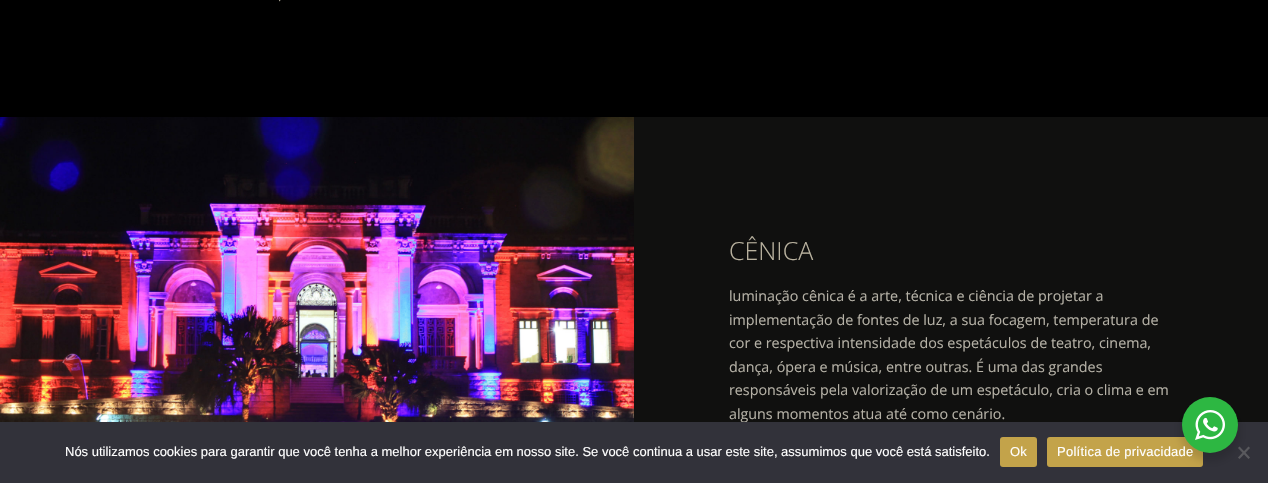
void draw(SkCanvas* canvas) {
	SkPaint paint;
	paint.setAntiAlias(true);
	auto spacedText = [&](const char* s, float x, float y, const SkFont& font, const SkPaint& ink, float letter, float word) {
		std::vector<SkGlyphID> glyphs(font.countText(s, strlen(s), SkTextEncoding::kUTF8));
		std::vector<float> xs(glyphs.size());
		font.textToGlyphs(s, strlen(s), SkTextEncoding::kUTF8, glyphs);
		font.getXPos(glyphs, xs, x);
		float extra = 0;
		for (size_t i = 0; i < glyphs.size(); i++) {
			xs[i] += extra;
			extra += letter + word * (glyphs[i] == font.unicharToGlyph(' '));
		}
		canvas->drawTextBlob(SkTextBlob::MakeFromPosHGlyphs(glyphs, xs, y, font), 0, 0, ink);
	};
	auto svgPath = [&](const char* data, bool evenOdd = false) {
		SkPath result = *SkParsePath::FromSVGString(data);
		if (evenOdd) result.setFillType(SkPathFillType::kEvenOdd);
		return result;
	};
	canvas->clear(0xff000000);
	SkFont f1(fontMgr->matchFamilyStyle("Open Sans", SkFontStyle(300, SkFontStyle::kNormal_Width, SkFontStyle::kUpright_Slant)), 14);
	f1.setSubpixel(true);
	paint.setColor(0xffb9b29f);
	canvas->drawString(".", 278, 1, f1, paint);
	paint.setColor(0xff10100f);
	canvas->drawRect(SkRect::MakeXYWH(634, 117, 634, 305), paint);
	canvas->drawImageRect(SkImages::DeferredFromEncodedData(SkData::MakeFromFileName("img1.png")), SkRect::MakeXYWH(0, 117, 634, 305), SkSamplingOptions());
	SkFont f2(fontMgr->matchFamilyStyle("Open Sans", SkFontStyle(300, SkFontStyle::kNormal_Width, SkFontStyle::kUpright_Slant)), 25);
	f2.setSubpixel(true);
	paint.setColor(0xffb9b29f);
	canvas->drawString("CÊNICA", 729, 260, f2, paint);
	SkFont f3(fontMgr->matchFamilyStyle("Open Sans", SkFontStyle::Normal()), 14.3);
	f3.setSubpixel(true);
	paint.setColor(0xffb5b1a6);
	canvas->drawString("luminação cênica é a arte, técnica e ciência de projetar a", 729, 301, f3, paint);
	canvas->drawString("implementação de fontes de luz, a sua focagem, temperatura de", 729, 325, f3, paint);
	canvas->drawString("cor e respectiva intensidade dos espetáculos de teatro, cinema,", 729, 348, f3, paint);
	canvas->drawString("dança, ópera e música, entre outras. É uma das grandes", 729, 372, f3, paint);
	canvas->drawString("responsáveis pela valorização de um espetáculo, cria o clima e em", 729, 395, f3, paint);
	canvas->drawString("alguns momentos atua até como cenário.", 729, 419, f3, paint);
	paint.setColor(0xff000000);
	canvas->drawRect(SkRect::MakeXYWH(1237, 418, 1, 4), paint);
	paint.setColor(0xff32323a);
	canvas->drawRect(SkRect::MakeXYWH(0, 422, 1268, 61), paint);
	paint.setColor(0xffc3a34a);
	canvas->drawRoundRect(SkRect::MakeXYWH(1047, 437, 156, 30), 3, 3, paint);
	paint.setColor(0xff59595d);
	canvas->drawPath(svgPath("M1248.5 446.5L1250 448L1239.5 459L1238 457.5Z"), paint);
	canvas->drawPath(svgPath("M1238 448L1239.5 446.5L1250 457.5L1248.5 459Z"), paint);
	paint.setColor(0x24000000);
	paint.setMaskFilter(SkMaskFilter::MakeBlur(kNormal_SkBlurStyle, 4));
	canvas->drawRoundRect(SkRect::MakeXYWH(1180, 401, 60, 60), 30, 30, paint);
	paint.setMaskFilter(nullptr);
	SkFont f4(fontMgr->matchFamilyStyle("Liberation Sans", SkFontStyle::Normal()), 13);
	f4.setSubpixel(true);
	paint.setColor(0xffffffff);
	spacedText("Política de privacidade", 1057, 456, f4, paint, 0.25, 0);
	paint.setColor(0xff2db742);
	canvas->drawCircle(1210, 425, 28, paint);
	canvas->drawImageRect(SkImages::DeferredFromEncodedData(SkData::MakeFromFileName("img2.png")), SkRect::MakeXYWH(1195, 410, 30, 30), SkSamplingOptions());
	paint.setColor(0xffffffff);
	canvas->drawString("Nós utilizamos cookies para garantir que você tenha a melhor experiência em nosso site. Se você continua a usar este site, assumimos que você está satisfeito.", 65, 456, f4, paint);
	paint.setColor(0xffc3a34a);
	canvas->drawRoundRect(SkRect::MakeXYWH(1000, 437, 37, 30), 3, 3, paint);
	paint.setColor(0xffffffff);
	spacedText("Ok", 1010, 456, f4, paint, 0.25, 0);
}
